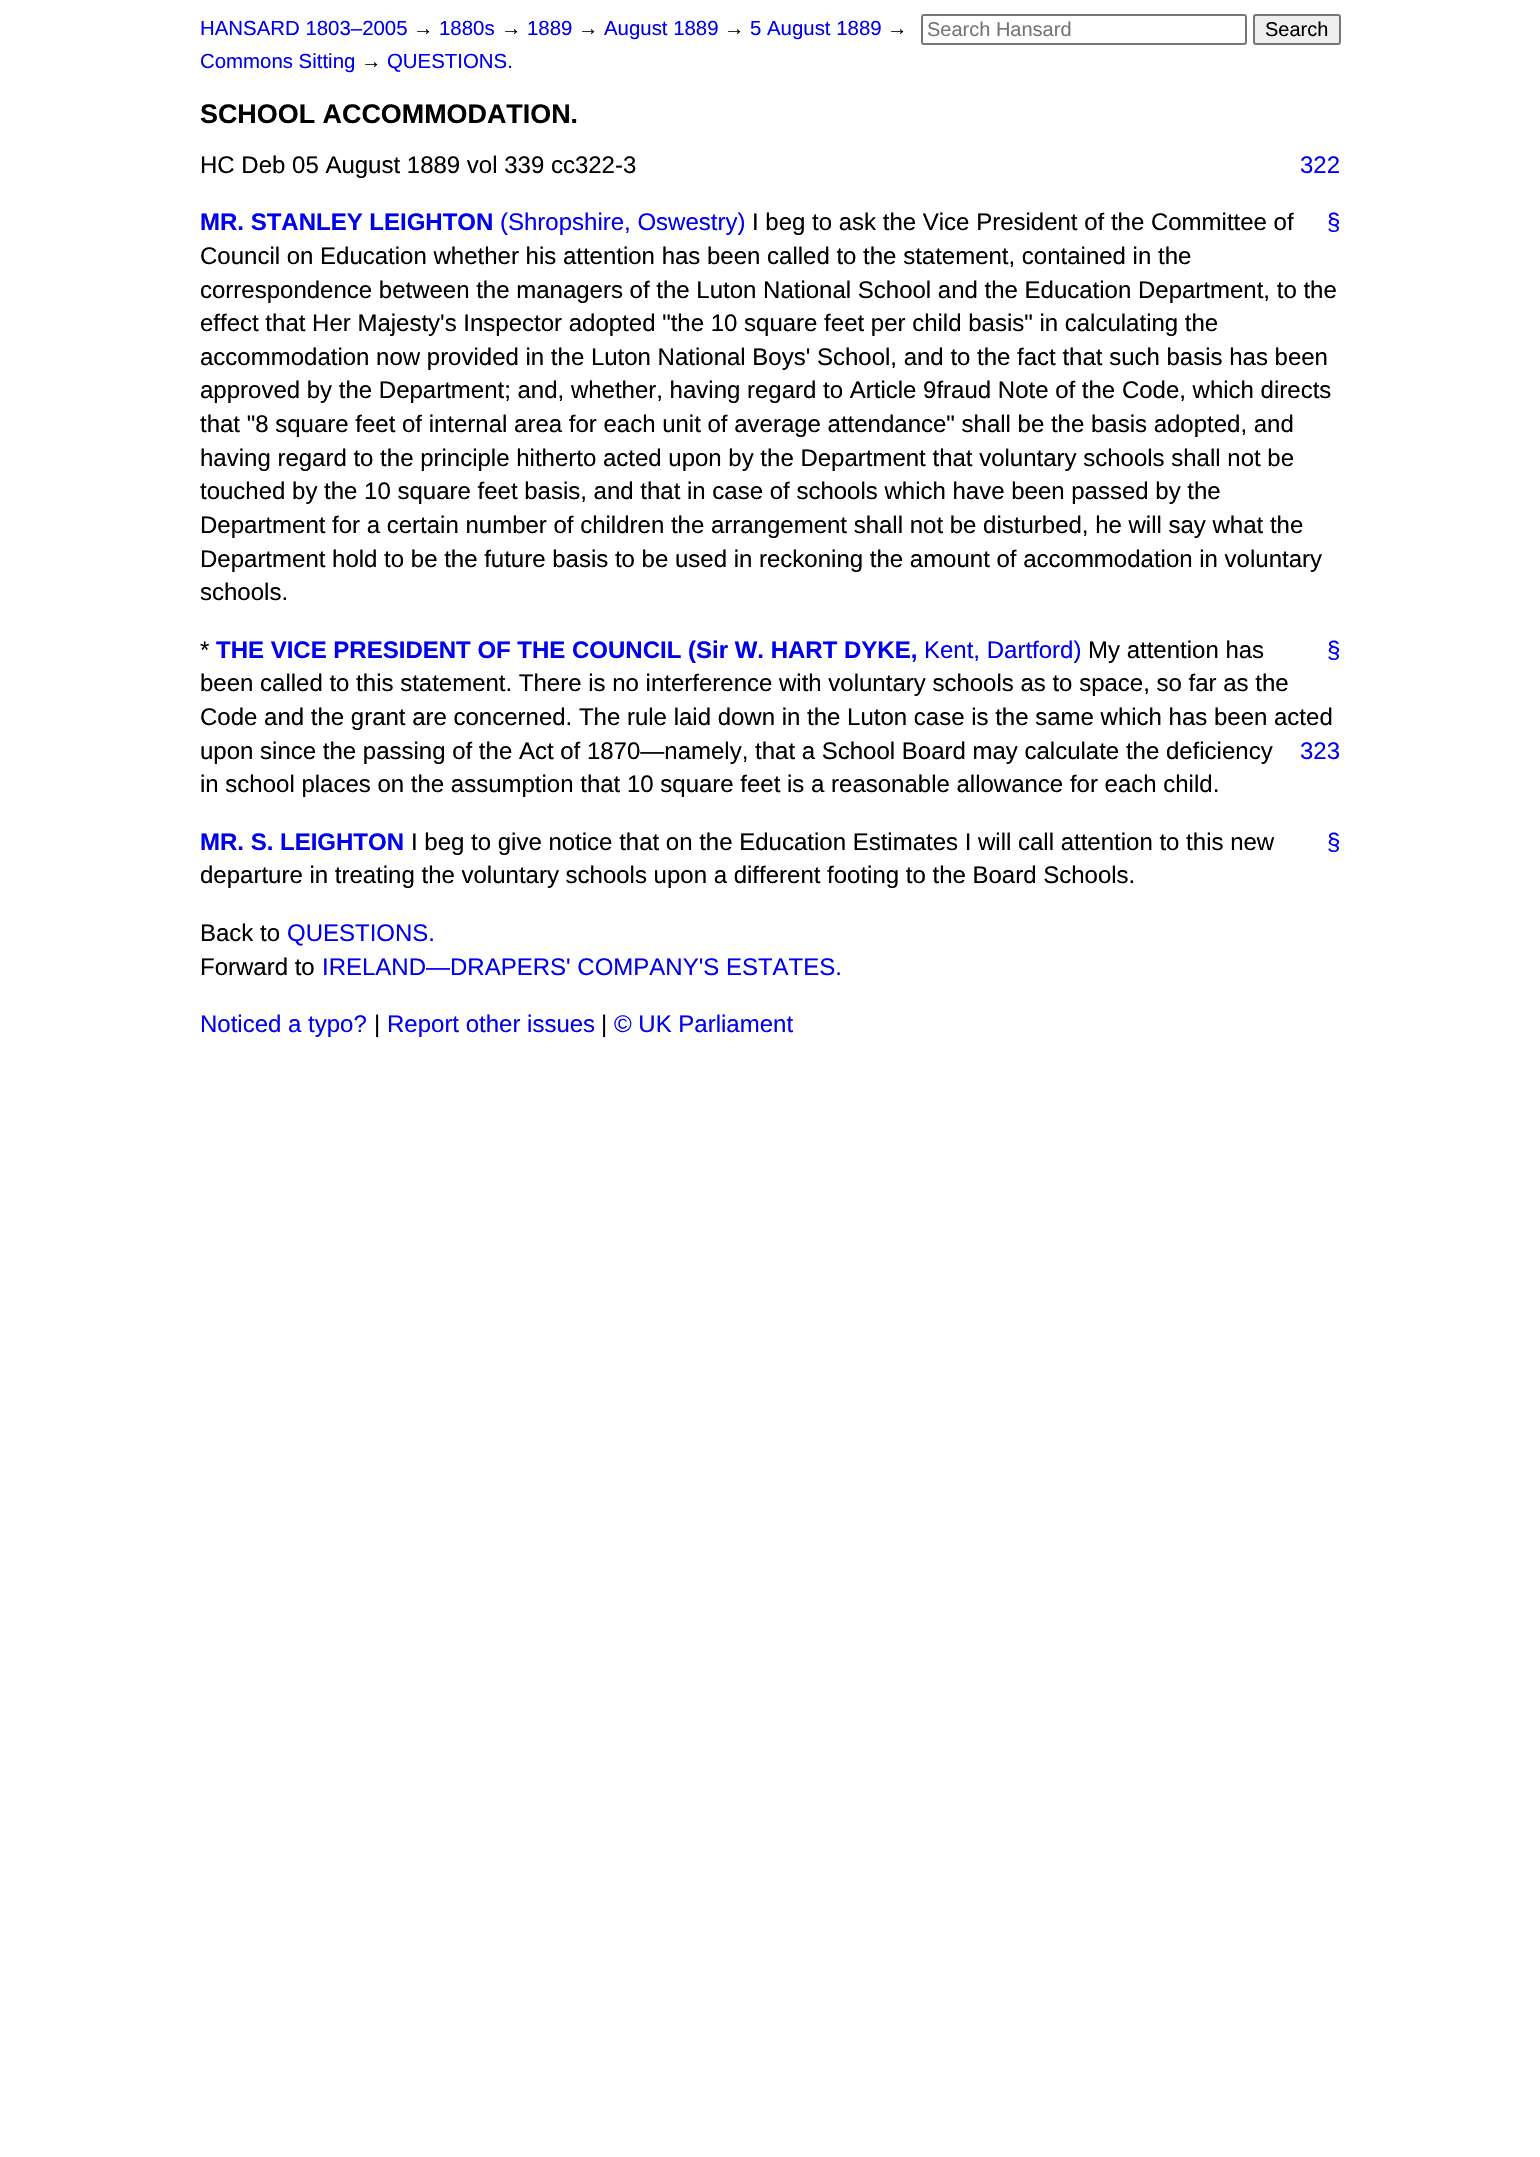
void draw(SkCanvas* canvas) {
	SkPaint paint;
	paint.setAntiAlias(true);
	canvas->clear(0xffffffff);
	SkFont f1(fontMgr->matchFamilyStyle("Liberation Sans", SkFontStyle::Normal()), 20.4);
	f1.setSubpixel(true);
	paint.setColor(0xff0000ee);
	canvas->drawString("HANSARD 1803–2005", 200, 35, f1, paint);
	paint.setColor(0xff000000);
	canvas->drawString("→", 413, 35, f1, paint);
	paint.setColor(0xff0000ee);
	canvas->drawString("1880s", 439, 35, f1, paint);
	paint.setColor(0xff000000);
	canvas->drawString("→", 501, 35, f1, paint);
	paint.setColor(0xff0000ee);
	canvas->drawString("1889", 527, 35, f1, paint);
	paint.setColor(0xff000000);
	canvas->drawString("→", 578, 35, f1, paint);
	paint.setColor(0xff0000ee);
	canvas->drawString("August 1889", 604, 35, f1, paint);
	paint.setColor(0xff000000);
	canvas->drawString("→", 724, 35, f1, paint);
	paint.setColor(0xff0000ee);
	canvas->drawString("5 August 1889", 750, 35, f1, paint);
	paint.setColor(0xff000000);
	canvas->drawString("→", 887, 35, f1, paint);
	paint.setColor(0xff0000ee);
	canvas->drawString("Commons Sitting", 200, 68, f1, paint);
	paint.setColor(0xff000000);
	canvas->drawString("→", 361, 68, f1, paint);
	paint.setColor(0xff0000ee);
	canvas->drawString("QUESTIONS.", 387, 68, f1, paint);
	paint.setStroke(true);
	paint.setStrokeWidth(2);
	paint.setColor(0xff767676);
	canvas->drawRoundRect(SkRect::MakeXYWH(922, 15, 324, 29), 2, 2, paint);
	SkFont f2(fontMgr->matchFamilyStyle("Liberation Sans", SkFontStyle::Normal()), 20);
	f2.setSubpixel(true);
	paint.setStroke(false);
	paint.setColor(0xff757575);
	canvas->drawString("Search Hansard", 927, 36, f2, paint);
	paint.setColor(0xffefefef);
	canvas->drawRoundRect(SkRect::MakeXYWH(1254, 15, 86, 29), 2, 2, paint);
	paint.setStroke(true);
	paint.setColor(0xff767676);
	canvas->drawRoundRect(SkRect::MakeXYWH(1254, 15, 86, 29), 2, 2, paint);
	paint.setStroke(false);
	paint.setColor(0xff000000);
	canvas->drawString("Search", 1265, 36, f2, paint);
	SkFont f3(fontMgr->matchFamilyStyle("Liberation Sans", SkFontStyle::Bold()), 26.9);
	f3.setSubpixel(true);
	canvas->drawString("SCHOOL ACCOMMODATION.", 200, 123, f3, paint);
	SkFont f4(fontMgr->matchFamilyStyle("Liberation Sans", SkFontStyle::Normal()), 24);
	f4.setSubpixel(true);
	canvas->drawString("HC Deb 05 August 1889 vol 339 cc322-3", 200, 173, f4, paint);
	paint.setColor(0xff0000ee);
	canvas->drawString("322", 1300, 173, f4, paint);
	SkFont f5(fontMgr->matchFamilyStyle("Liberation Sans", SkFontStyle::Bold()), 24);
	f5.setSubpixel(true);
	canvas->drawString("MR. STANLEY LEIGHTON", 200, 230, f5, paint);
	canvas->drawString("(Shropshire, Oswestry)", 500, 230, f4, paint);
	paint.setColor(0xff000000);
	canvas->drawString("I beg to ask the Vice President of the Committee of", 752, 230, f4, paint);
	paint.setColor(0xff0000ee);
	canvas->drawString("§", 1327, 230, f4, paint);
	paint.setColor(0xff000000);
	canvas->drawString("Council on Education whether his attention has been called to the statement, contained in the", 200, 264, f4, paint);
	canvas->drawString("correspondence between the managers of the Luton National School and the Education Department, to the", 200, 298, f4, paint);
	canvas->drawString("effect that Her Majesty's Inspector adopted \"the 10 square feet per child basis\" in calculating the", 200, 331, f4, paint);
	canvas->drawString("accommodation now provided in the Luton National Boys' School, and to the fact that such basis has been", 200, 365, f4, paint);
	canvas->drawString("approved by the Department; and, whether, having regard to Article 9fraud Note of the Code, which directs", 200, 398, f4, paint);
	canvas->drawString("that \"8 square feet of internal area for each unit of average attendance\" shall be the basis adopted, and", 200, 432, f4, paint);
	canvas->drawString("having regard to the principle hitherto acted upon by the Department that voluntary schools shall not be", 200, 466, f4, paint);
	canvas->drawString("touched by the 10 square feet basis, and that in case of schools which have been passed by the", 200, 499, f4, paint);
	canvas->drawString("Department for a certain number of children the arrangement shall not be disturbed, he will say what the", 200, 533, f4, paint);
	canvas->drawString("Department hold to be the future basis to be used in reckoning the amount of accommodation in voluntary", 200, 567, f4, paint);
	canvas->drawString("schools.", 200, 600, f4, paint);
	canvas->drawString("My attention has", 1088, 658, f4, paint);
	canvas->drawString("been called to this statement. There is no interference with voluntary schools as to space, so far as the", 200, 691, f4, paint);
	canvas->drawString("Code and the grant are concerned. The rule laid down in the Luton case is the same which has been acted", 200, 725, f4, paint);
	canvas->drawString("upon since the passing of the Act of 1870—namely, that a School Board may calculate the deficiency", 200, 759, f4, paint);
	paint.setColor(0xff0000ee);
	canvas->drawString("323", 1300, 759, f4, paint);
	paint.setColor(0xff000000);
	canvas->drawString("in school places on the assumption that 10 square feet is a reasonable allowance for each child.", 200, 792, f4, paint);
	canvas->drawString("*", 200, 658, f4, paint);
	paint.setColor(0xff0000ee);
	canvas->drawString("THE VICE PRESIDENT OF THE COUNCIL (Sir W. HART DYKE,", 216, 658, f5, paint);
	canvas->drawString("Kent, Dartford)", 924, 658, f4, paint);
	canvas->drawString("§", 1327, 658, f4, paint);
	canvas->drawString("MR. S. LEIGHTON", 200, 850, f5, paint);
	paint.setColor(0xff000000);
	canvas->drawString("I beg to give notice that on the Education Estimates I will call attention to this new", 411, 850, f4, paint);
	paint.setColor(0xff0000ee);
	canvas->drawString("§", 1327, 850, f4, paint);
	paint.setColor(0xff000000);
	canvas->drawString("departure in treating the voluntary schools upon a different footing to the Board Schools.", 200, 883, f4, paint);
	canvas->drawString("Back to", 200, 941, f4, paint);
	paint.setColor(0xff0000ee);
	canvas->drawString("QUESTIONS.", 287, 941, f4, paint);
	paint.setColor(0xff000000);
	canvas->drawString("Forward to", 200, 975, f4, paint);
	paint.setColor(0xff0000ee);
	canvas->drawString("IRELAND—DRAPERS' COMPANY'S ESTATES.", 322, 975, f4, paint);
	canvas->drawString("Noticed a typo?", 200, 1032, f4, paint);
	paint.setColor(0xff000000);
	canvas->drawString("|", 374, 1032, f4, paint);
	paint.setColor(0xff0000ee);
	canvas->drawString("Report other issues", 387, 1032, f4, paint);
	paint.setColor(0xff000000);
	canvas->drawString("|", 601, 1032, f4, paint);
	paint.setColor(0xff0000ee);
	canvas->drawString("© UK Parliament", 614, 1032, f4, paint);
}
